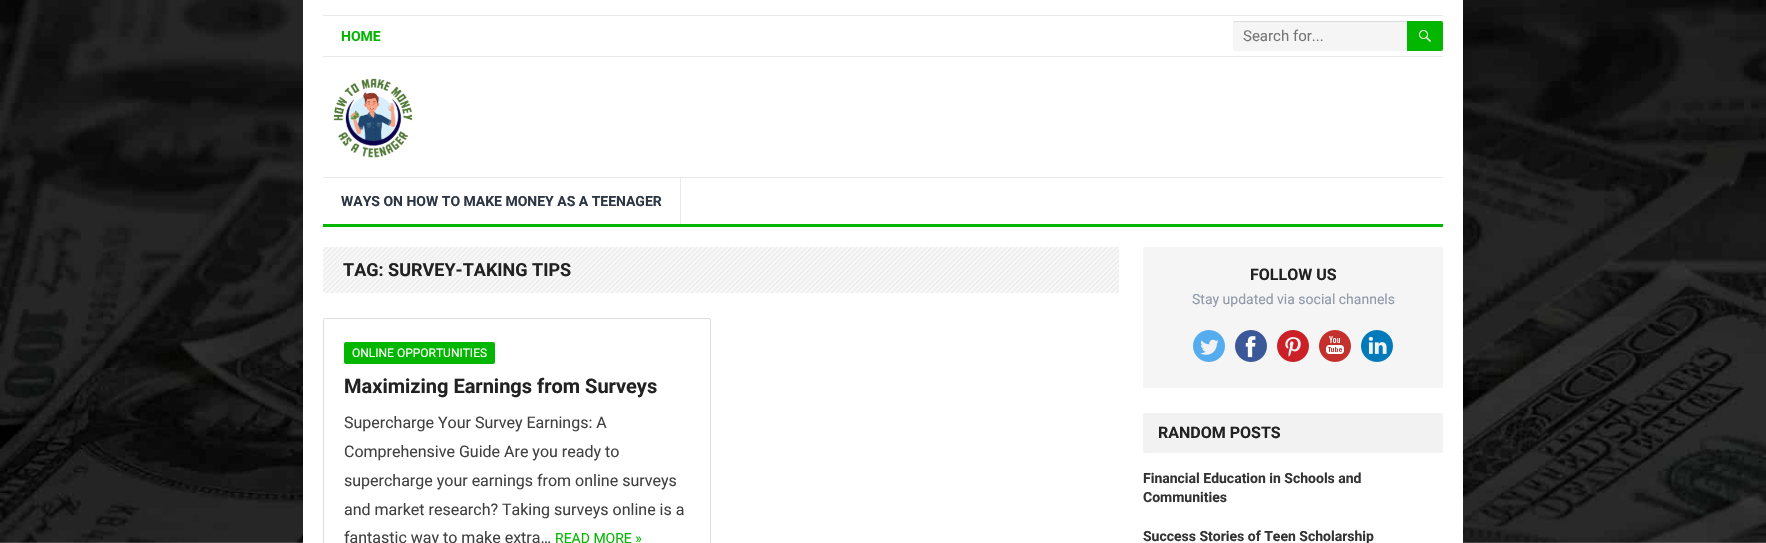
void draw(SkCanvas* canvas) {
	SkPaint paint;
	paint.setAntiAlias(true);
	auto svgPath = [&](const char* data, bool evenOdd = false) {
		SkPath result = *SkParsePath::FromSVGString(data);
		if (evenOdd) result.setFillType(SkPathFillType::kEvenOdd);
		return result;
	};
	canvas->clear(0xffffffff);
	canvas->drawImageRect(SkImages::DeferredFromEncodedData(SkData::MakeFromFileName("img1.png")), SkRect::MakeXYWH(0, 0, 1766, 543), SkSamplingOptions());
	paint.setColor(0xffffffff);
	canvas->drawRect(SkRect::MakeXYWH(303, 0, 1160, 543), paint);
	paint.setColor(0xffe9e9e9);
	canvas->drawRect(SkRect::MakeXYWH(323, 15, 1120, 1), paint);
	canvas->drawRect(SkRect::MakeXYWH(323, 56, 1120, 1), paint);
	SkFont f1(fontMgr->matchFamilyStyle("Roboto", SkFontStyle::Bold()), 14);
	f1.setSubpixel(true);
	paint.setColor(0xff03b700);
	canvas->drawString("HOME", 341, 41, f1, paint);
	paint.setColor(0xfff5f5f5);
	canvas->drawPath(svgPath("M1235 21H1443V51H1235C1234 51 1233 50 1233 49V23C1233 22 1234 21 1235 21Z"), paint);
	paint.setColor(0xffdddddd);
	canvas->drawPath(svgPath("M1235 22H1443V21H1235C1233 21 1233 23 1233 24C1233 23 1234 22 1235 22Z"), paint);
	SkFont f2(fontMgr->matchFamilyStyle("Roboto", SkFontStyle::Normal()), 15);
	f2.setSubpixel(true);
	paint.setColor(0xff757575);
	canvas->drawString("Search for...", 1243, 41, f2, paint);
	paint.setColor(0xff03b700);
	canvas->drawPath(svgPath("M1407 21H1441C1442 21 1443 22 1443 23V49C1443 50 1442 51 1441 51H1407Z"), paint);
	canvas->drawImageRect(SkImages::DeferredFromEncodedData(SkData::MakeFromFileName("img2.png")), SkRect::MakeXYWH(1419, 30, 12, 12), SkSamplingOptions());
	canvas->drawImageRect(SkImages::DeferredFromEncodedData(SkData::MakeFromFileName("img3.png")), SkRect::MakeXYWH(333, 78, 80, 80), SkSamplingOptions());
	paint.setColor(0xffe9e9e9);
	canvas->drawRect(SkRect::MakeXYWH(323, 177, 1120, 1), paint);
	paint.setColor(0xff03b700);
	canvas->drawRect(SkRect::MakeXYWH(323, 224, 1120, 3), paint);
	paint.setColor(0xffe9e9e9);
	canvas->drawRect(SkRect::MakeXYWH(680, 178, 1, 46), paint);
	paint.setColor(0xff2c3644);
	canvas->drawString("WAYS ON HOW TO MAKE MONEY AS A TEENAGER", 341, 206, f1, paint);
	canvas->drawImageRect(SkImages::DeferredFromEncodedData(SkData::MakeFromFileName("img4.png")), SkRect::MakeXYWH(323, 247, 796, 46), SkSamplingOptions());
	SkFont f3(fontMgr->matchFamilyStyle("Roboto", SkFontStyle::Bold()), 18);
	f3.setSubpixel(true);
	paint.setColor(0xff222222);
	canvas->drawString("TAG: SURVEY-TAKING TIPS", 343, 276, f3, paint);
	paint.setStroke(true);
	paint.setStrokeWidth(1);
	paint.setColor(0xffdddddd);
	canvas->drawRoundRect(SkRect::MakeXYWH(323.5, 318.5, 387, 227), 1.5, 1.5, paint);
	paint.setStroke(false);
	paint.setColor(0xff03b700);
	canvas->drawRoundRect(SkRect::MakeXYWH(344, 342, 151, 22), 2, 2, paint);
	SkFont f4(fontMgr->matchFamilyStyle("Roboto", SkFontStyle::Normal()), 12);
	f4.setSubpixel(true);
	paint.setColor(0xffffffff);
	canvas->drawString("ONLINE OPPORTUNITIES", 352, 357, f4, paint);
	SkFont f5(fontMgr->matchFamilyStyle("Roboto", SkFontStyle::Bold()), 20);
	f5.setSubpixel(true);
	paint.setColor(0xff222222);
	canvas->drawString("Maximizing Earnings from Surveys", 344, 393, f5, paint);
	SkFont f6(fontMgr->matchFamilyStyle("Roboto", SkFontStyle::Normal()), 16);
	f6.setSubpixel(true);
	paint.setColor(0xff414141);
	canvas->drawString("Supercharge Your Survey Earnings: A", 344, 428, f6, paint);
	canvas->drawString("Comprehensive Guide Are you ready to", 344, 457, f6, paint);
	canvas->drawString("supercharge your earnings from online surveys", 344, 486, f6, paint);
	canvas->drawString("and market research? Taking surveys online is a", 344, 515, f6, paint);
	canvas->drawString("fantastic way to make extra…", 344, 543, f6, paint);
	SkFont f7(fontMgr->matchFamilyStyle("Roboto", SkFontStyle::Normal()), 14);
	f7.setSubpixel(true);
	paint.setColor(0xff03b700);
	canvas->drawString("READ MORE »", 555, 543, f7, paint);
	paint.setColor(0xfff5f5f5);
	canvas->drawRoundRect(SkRect::MakeXYWH(1143, 247, 300, 141), 2, 2, paint);
	SkFont f8(fontMgr->matchFamilyStyle("Roboto", SkFontStyle::Bold()), 16);
	f8.setSubpixel(true);
	paint.setColor(0xff222222);
	canvas->drawString("FOLLOW US", 1250, 280, f8, paint);
	paint.setColor(0xff8e99a9);
	canvas->drawString("Stay updated via social channels", 1192, 304, f7, paint);
	canvas->drawImageRect(SkImages::DeferredFromEncodedData(SkData::MakeFromFileName("img5.png")), SkRect::MakeXYWH(1193, 330, 32, 32), SkSamplingOptions());
	canvas->drawImageRect(SkImages::DeferredFromEncodedData(SkData::MakeFromFileName("img6.png")), SkRect::MakeXYWH(1235, 330, 32, 32), SkSamplingOptions());
	canvas->drawImageRect(SkImages::DeferredFromEncodedData(SkData::MakeFromFileName("img7.png")), SkRect::MakeXYWH(1277, 330, 32, 32), SkSamplingOptions());
	canvas->drawImageRect(SkImages::DeferredFromEncodedData(SkData::MakeFromFileName("img8.png")), SkRect::MakeXYWH(1319, 330, 32, 32), SkSamplingOptions());
	canvas->drawImageRect(SkImages::DeferredFromEncodedData(SkData::MakeFromFileName("img9.png")), SkRect::MakeXYWH(1361, 330, 32, 32), SkSamplingOptions());
	paint.setColor(0xfff2f2f2);
	canvas->drawRoundRect(SkRect::MakeXYWH(1143, 413, 300, 40), 2, 2, paint);
	paint.setColor(0xff222222);
	canvas->drawString("RANDOM POSTS", 1158, 438, f8, paint);
	paint.setColor(0xff333333);
	canvas->drawString("Financial Education in Schools and", 1143, 483, f1, paint);
	canvas->drawString("Communities", 1143, 502, f1, paint);
	canvas->drawString("Success Stories of Teen Scholarship", 1143, 541, f1, paint);
}
